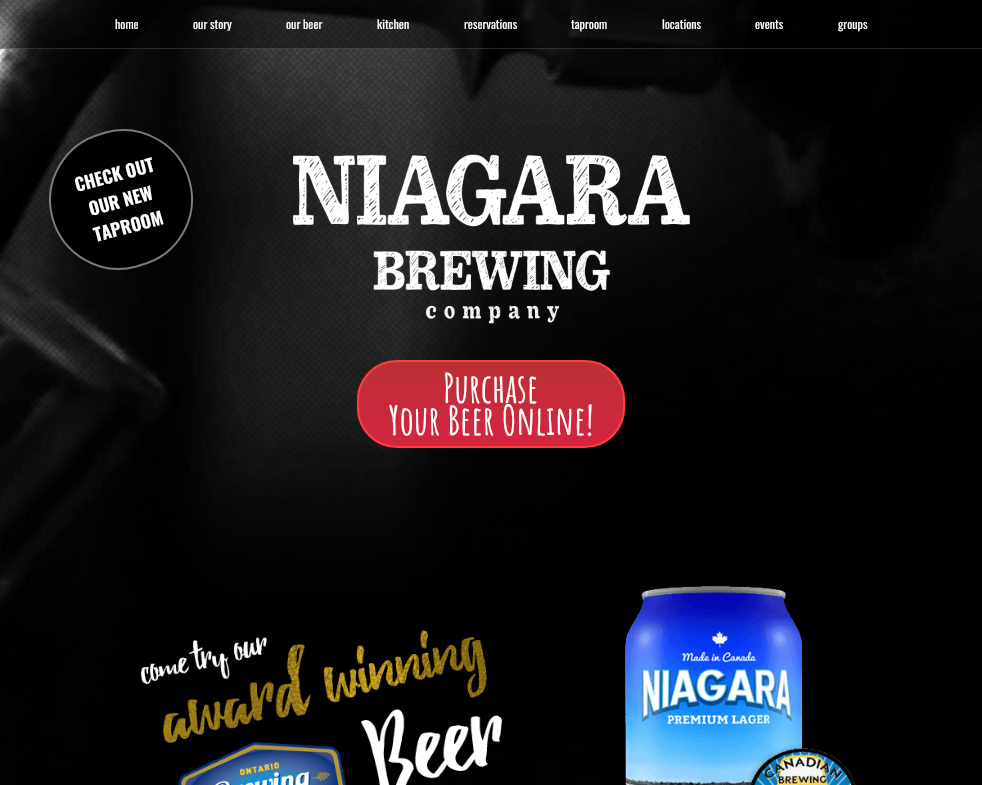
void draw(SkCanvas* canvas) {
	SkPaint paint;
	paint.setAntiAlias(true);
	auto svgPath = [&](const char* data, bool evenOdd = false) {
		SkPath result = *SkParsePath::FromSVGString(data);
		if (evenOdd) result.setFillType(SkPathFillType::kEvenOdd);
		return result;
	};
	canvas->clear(0xffffffff);
	canvas->drawImageRect(SkImages::DeferredFromEncodedData(SkData::MakeFromFileName("img2.png")), SkRect::MakeXYWH(0, 0, 982, 785), SkSamplingOptions());
	canvas->drawImageRect(SkImages::DeferredFromEncodedData(SkData::MakeFromFileName("img1.png")), SkRect::MakeXYWH(0, 0, 792, 588), SkSamplingOptions());
	paint.setColor(0x73000000);
	canvas->drawRect(SkRect::MakeXYWH(0, 0, 751, 49), paint);
	paint.setColor(0x26f9f6f6);
	canvas->drawRect(SkRect::MakeXYWH(0, 48, 982, 1), paint);
	SkFont f1(fontMgr->matchFamilyStyle("Oswald", SkFontStyle::Normal()), 12);
	f1.setSubpixel(true);
	paint.setColor(0xffffffff);
	canvas->drawString("home", 115, 29, f1, paint);
	canvas->drawString("our story", 193, 29, f1, paint);
	canvas->drawString("our beer", 286, 29, f1, paint);
	canvas->drawString("kitchen", 377, 29, f1, paint);
	canvas->drawString("reservations", 464, 29, f1, paint);
	canvas->drawString("taproom", 571, 29, f1, paint);
	canvas->drawString("locations", 662, 29, f1, paint);
	canvas->drawString("events", 755, 29, f1, paint);
	canvas->drawString("groups", 838, 29, f1, paint);
	paint.setColor(0xff010000);
	canvas->drawPath(svgPath("M101 133L105 132C143 122 181 144 191 181C201 218 179 256 141 266L137 267C100 277 61 255 52 218C42 181 64 143 101 133Z"), paint);
	paint.setStroke(true);
	paint.setStrokeWidth(2);
	paint.setColor(0xff7b7b7b);
	canvas->drawPath(svgPath("M101 134L105.5 132.5C142.5 123 180 144.5 189.5 181C199.5 218 178 255.5 141 265L136.5 266.5C100 276.5 62.5 254.5 52.5 218C42.5 181.5 64.5 144 101 134Z"), paint);
	SkFont f2(fontMgr->matchFamilyStyle("Oswald", SkFontStyle::Bold()), 17.5);
	f2.setSubpixel(true);
	paint.setStroke(false);
	paint.setColor(0xffffffff);
	canvas->save();
	canvas->rotate(-15, 77, 192);
	canvas->drawString("CHECK OUT", 77, 192, f2, paint);
	canvas->restore();
	canvas->save();
	canvas->rotate(-15, 91, 216);
	canvas->drawString("OUR NEW", 91, 216, f2, paint);
	canvas->restore();
	canvas->save();
	canvas->rotate(-15, 96, 242);
	canvas->drawString("TAPROOM", 96, 242, f2, paint);
	canvas->restore();
	canvas->drawImageRect(SkImages::DeferredFromEncodedData(SkData::MakeFromFileName("img3.png")), SkRect::MakeXYWH(293, 154, 397, 170), SkSamplingOptions());
	canvas->save();
	canvas->clipPath(svgPath("M397 360H585C607 360 625 378 625 400V408C625 430 607 448 585 448H397C375 448 357 430 357 408V400C357 378 375 360 397 360Z"), true);
	{
		const SkColor colors[] = {0xffbb3035, 0xffd52441};
		const float stops[] = {0, 1};
		const SkPoint ends[] = {{491, 362}, {491, 446}};
		paint.setShader(SkGradientShader::MakeLinear(ends, colors, stops, 2, SkTileMode::kClamp));
		paint.setAlpha(255);
	}
	canvas->drawRect(SkRect::MakeXYWH(357, 362, 268, 84), paint);
	canvas->restore();
	paint.setStroke(true);
	paint.setShader(nullptr);
	paint.setColor(0xffff3d3e);
	canvas->drawRoundRect(SkRect::MakeXYWH(358, 361, 266, 86), 39, 39, paint);
	SkFont f3(fontMgr->matchFamilyStyle("Amatic SC", SkFontStyle::Bold()), 40);
	f3.setSubpixel(true);
	paint.setStroke(false);
	paint.setColor(0xffffffff);
	canvas->drawString("Purchase", 443, 403, f3, paint);
	canvas->drawString("Your Beer Online!", 389, 435, f3, paint);
	canvas->drawImageRect(SkImages::DeferredFromEncodedData(SkData::MakeFromFileName("img4.png")), SkRect::MakeXYWH(140, 586, 716, 199), SkSamplingOptions());
}
